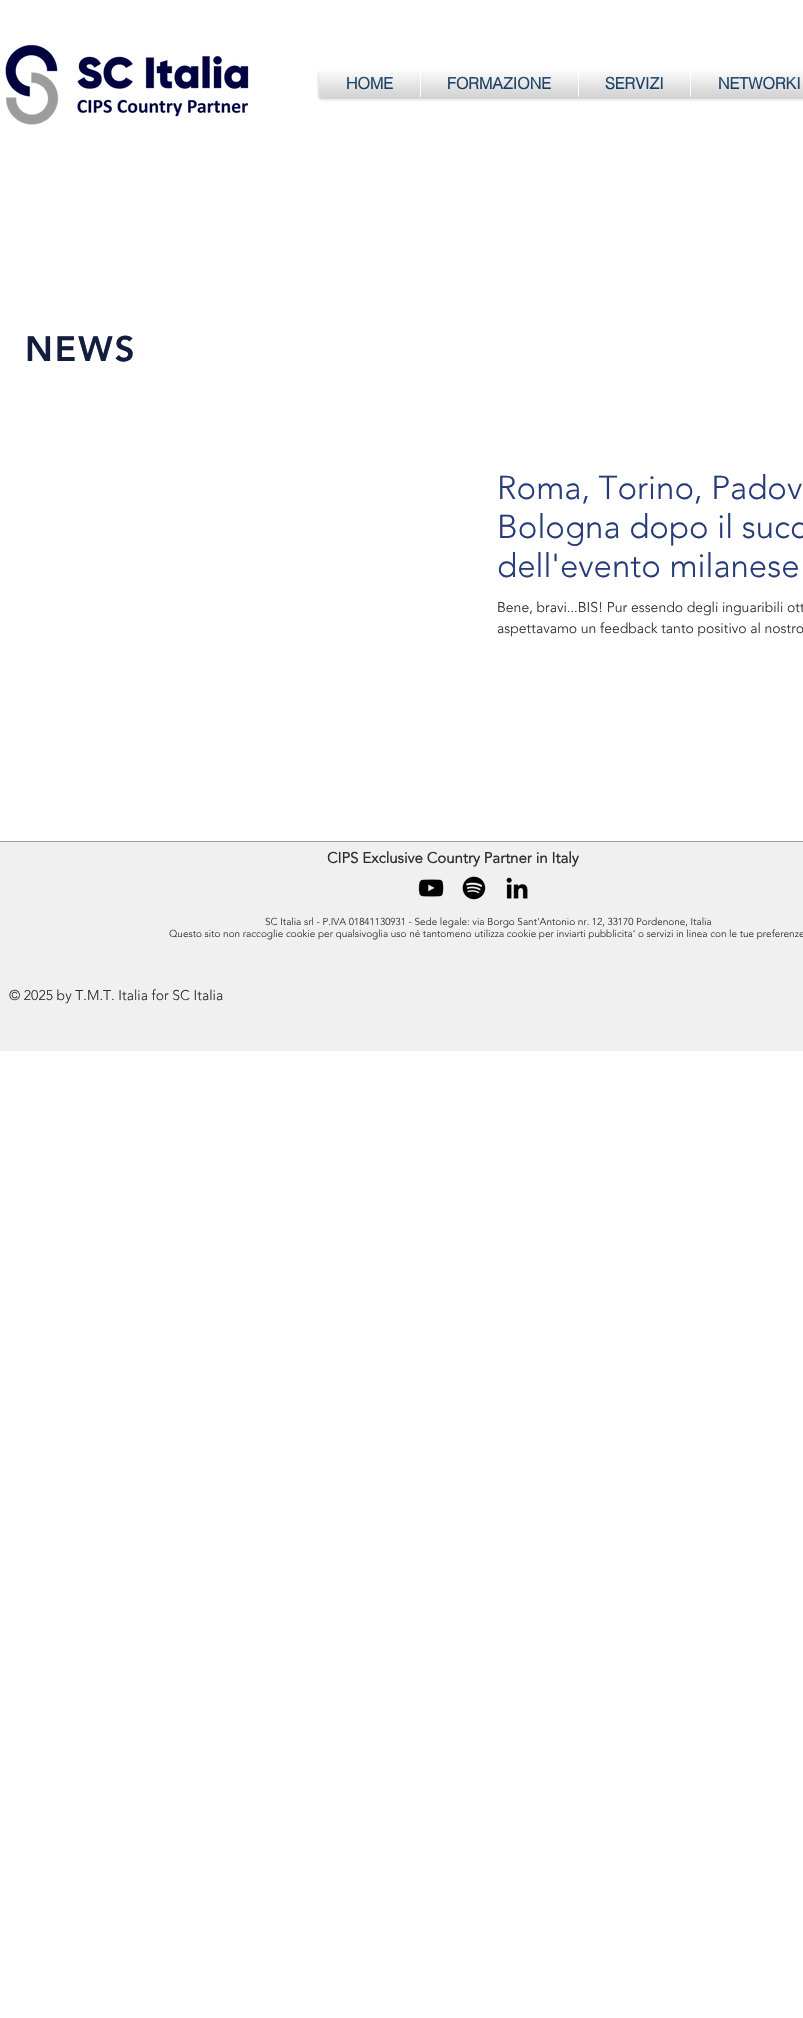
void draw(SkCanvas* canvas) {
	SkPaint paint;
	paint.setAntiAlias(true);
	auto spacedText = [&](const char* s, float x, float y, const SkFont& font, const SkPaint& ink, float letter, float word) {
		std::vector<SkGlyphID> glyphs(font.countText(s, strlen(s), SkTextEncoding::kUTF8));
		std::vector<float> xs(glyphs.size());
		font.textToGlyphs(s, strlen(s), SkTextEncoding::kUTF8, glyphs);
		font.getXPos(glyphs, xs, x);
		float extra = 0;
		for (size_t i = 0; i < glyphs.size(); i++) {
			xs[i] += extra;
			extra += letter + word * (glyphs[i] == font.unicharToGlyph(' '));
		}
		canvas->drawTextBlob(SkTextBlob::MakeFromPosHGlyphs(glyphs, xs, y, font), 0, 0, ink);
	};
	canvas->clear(0xffffffff);
	canvas->drawImageRect(SkImages::DeferredFromEncodedData(SkData::MakeFromFileName("img1.png")), SkRect::MakeXYWH(5, 44, 244, 81), SkSamplingOptions());
	paint.setColor(0x99a29e9e);
	paint.setMaskFilter(SkMaskFilter::MakeBlur(kNormal_SkBlurStyle, 1.5));
	canvas->drawRect(SkRect::MakeXYWH(319, 72, 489, 27), paint);
	paint.setMaskFilter(nullptr);
	paint.setColor(0xffffffff);
	canvas->drawRect(SkRect::MakeXYWH(319, 70, 484, 27), paint);
	SkFont f1(fontMgr->matchFamilyStyle("helvetica", SkFontStyle::Bold()), 16);
	f1.setSubpixel(true);
	paint.setColor(0xff002e5d);
	canvas->drawString("HOME", 346, 89, f1, paint);
	canvas->drawImageRect(SkImages::DeferredFromEncodedData(SkData::MakeFromFileName("img2.png")), SkRect::MakeXYWH(347, 77, 46, 13), SkSamplingOptions());
	canvas->drawImageRect(SkImages::DeferredFromEncodedData(SkData::MakeFromFileName("img3.png")), SkRect::MakeXYWH(319, 71, 101, 26), SkSamplingOptions());
	canvas->drawString("FORMAZIONE", 447, 89, f1, paint);
	canvas->drawImageRect(SkImages::DeferredFromEncodedData(SkData::MakeFromFileName("img4.png")), SkRect::MakeXYWH(448, 77, 103, 13), SkSamplingOptions());
	canvas->drawImageRect(SkImages::DeferredFromEncodedData(SkData::MakeFromFileName("img5.png")), SkRect::MakeXYWH(421, 71, 157, 26), SkSamplingOptions());
	canvas->drawString("SERVIZI", 605, 89, f1, paint);
	canvas->drawImageRect(SkImages::DeferredFromEncodedData(SkData::MakeFromFileName("img6.png")), SkRect::MakeXYWH(606, 77, 57, 13), SkSamplingOptions());
	canvas->drawImageRect(SkImages::DeferredFromEncodedData(SkData::MakeFromFileName("img7.png")), SkRect::MakeXYWH(579, 71, 111, 26), SkSamplingOptions());
	canvas->drawString("NETWORKI", 718, 89, f1, paint);
	canvas->drawImageRect(SkImages::DeferredFromEncodedData(SkData::MakeFromFileName("img8.png")), SkRect::MakeXYWH(719, 77, 84, 13), SkSamplingOptions());
	canvas->drawImageRect(SkImages::DeferredFromEncodedData(SkData::MakeFromFileName("img9.png")), SkRect::MakeXYWH(691, 71, 112, 26), SkSamplingOptions());
	SkFont f2(fontMgr->matchFamilyStyle("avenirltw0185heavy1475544", SkFontStyle(900, SkFontStyle::kNormal_Width, SkFontStyle::kUpright_Slant)), 35);
	f2.setSubpixel(true);
	paint.setColor(0xff141d3d);
	spacedText("NEWS", 25, 361, f2, paint, 2, 0);
	SkFont f3(fontMgr->matchFamilyStyle("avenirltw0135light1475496", SkFontStyle(300, SkFontStyle::kNormal_Width, SkFontStyle::kUpright_Slant)), 33);
	f3.setSubpixel(true);
	paint.setColor(0xff273b7b);
	canvas->drawString("Roma, Torino, Padov", 497, 499, f3, paint);
	canvas->drawString("Bologna dopo il succ", 497, 538, f3, paint);
	canvas->drawString("dell'evento milanese", 497, 577, f3, paint);
	SkFont f4(fontMgr->matchFamilyStyle("avenirltw0135light1475496", SkFontStyle(300, SkFontStyle::kNormal_Width, SkFontStyle::kUpright_Slant)), 14);
	f4.setSubpixel(true);
	paint.setColor(0xff2f2e2e);
	canvas->drawString("Bene, bravi...BIS! Pur essendo degli inguaribili ott", 497, 612, f4, paint);
	canvas->drawString("aspettavamo un feedback tanto positivo al nostro", 497, 633, f4, paint);
	paint.setColor(0xfff0f0f0);
	canvas->drawRect(SkRect::MakeXYWH(0, 842, 803, 209), paint);
	paint.setColor(0xffa0a09f);
	canvas->drawRect(SkRect::MakeXYWH(0, 841, 803, 1), paint);
	SkFont f5(fontMgr->matchFamilyStyle("avenirltw0135light1475496", SkFontStyle::Bold()), 15);
	f5.setSubpixel(true);
	paint.setColor(0xff2f2e2e);
	canvas->drawString("CIPS Exclusive Country Partner in Italy", 327, 863, f5, paint);
	canvas->drawImageRect(SkImages::DeferredFromEncodedData(SkData::MakeFromFileName("img10.png")), SkRect::MakeXYWH(418, 879, 26, 18), SkSamplingOptions());
	canvas->drawImageRect(SkImages::DeferredFromEncodedData(SkData::MakeFromFileName("img11.png")), SkRect::MakeXYWH(462, 876, 24, 24), SkSamplingOptions());
	canvas->drawImageRect(SkImages::DeferredFromEncodedData(SkData::MakeFromFileName("img12.png")), SkRect::MakeXYWH(506, 877, 22, 22), SkSamplingOptions());
	SkFont f6(fontMgr->matchFamilyStyle("avenirltw0135light1475496", SkFontStyle(300, SkFontStyle::kNormal_Width, SkFontStyle::kUpright_Slant)), 10);
	f6.setSubpixel(true);
	canvas->drawString("SC Italia srl - P.IVA 01841130931 - Sede legale: via Borgo Sant'Antonio nr. 12, 33170 Pordenone, Italia", 265, 925, f6, paint);
	canvas->drawString("Questo sito non raccoglie cookie per qualsivoglia uso né tantomeno utilizza cookie per inviarti pubblicita' o servizi in linea con le tue preferenze", 169, 937, f6, paint);
	canvas->drawString("© 2025 by T.M.T. Italia for SC Italia", 9, 1000, f4, paint);
}
